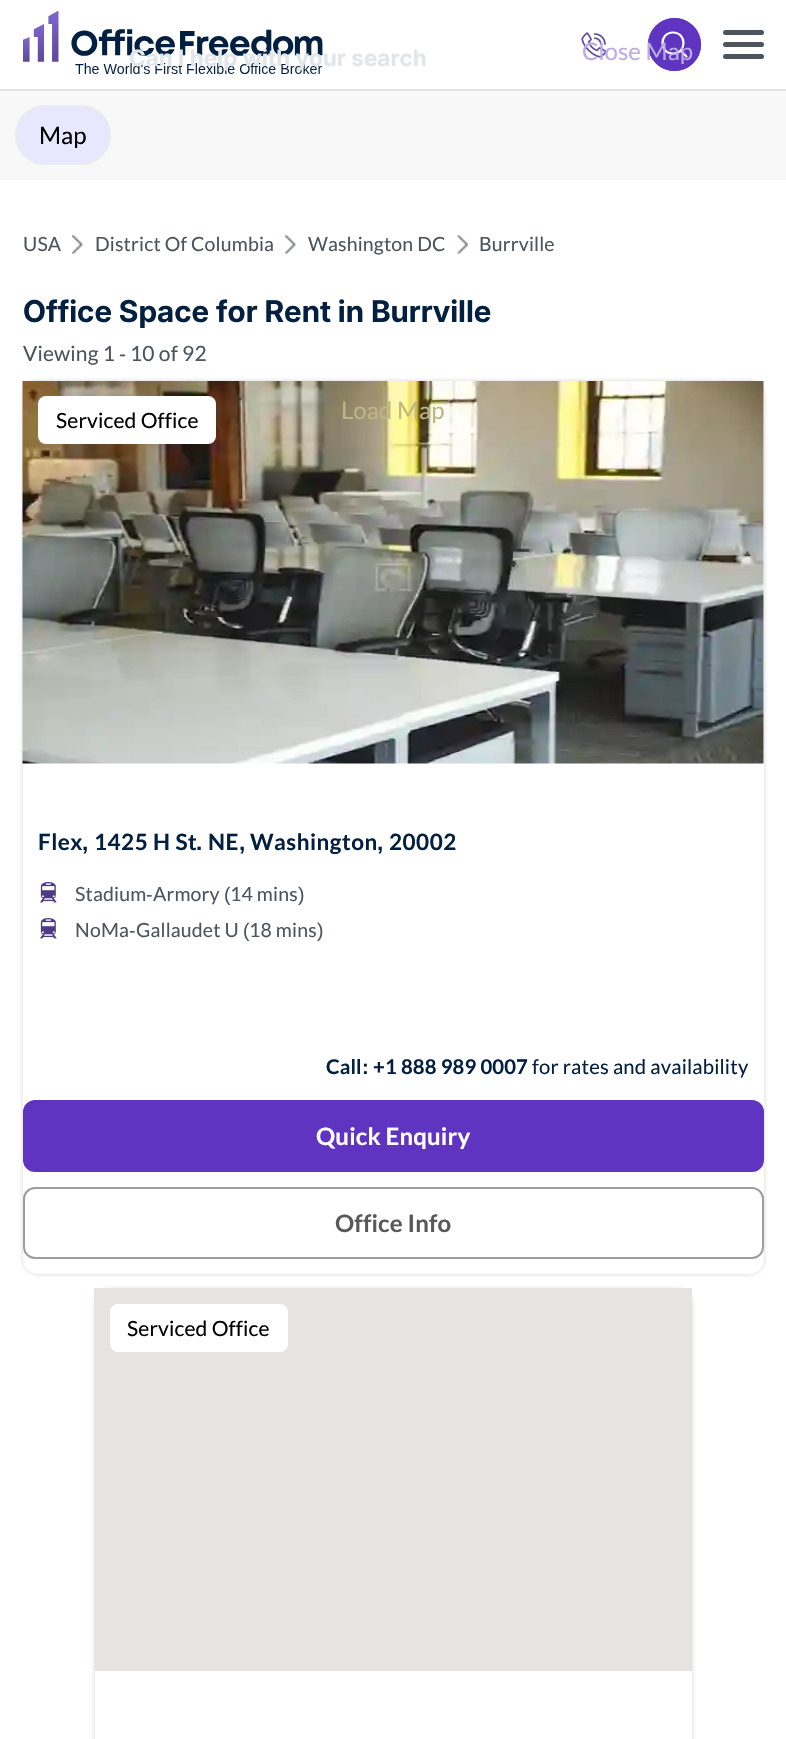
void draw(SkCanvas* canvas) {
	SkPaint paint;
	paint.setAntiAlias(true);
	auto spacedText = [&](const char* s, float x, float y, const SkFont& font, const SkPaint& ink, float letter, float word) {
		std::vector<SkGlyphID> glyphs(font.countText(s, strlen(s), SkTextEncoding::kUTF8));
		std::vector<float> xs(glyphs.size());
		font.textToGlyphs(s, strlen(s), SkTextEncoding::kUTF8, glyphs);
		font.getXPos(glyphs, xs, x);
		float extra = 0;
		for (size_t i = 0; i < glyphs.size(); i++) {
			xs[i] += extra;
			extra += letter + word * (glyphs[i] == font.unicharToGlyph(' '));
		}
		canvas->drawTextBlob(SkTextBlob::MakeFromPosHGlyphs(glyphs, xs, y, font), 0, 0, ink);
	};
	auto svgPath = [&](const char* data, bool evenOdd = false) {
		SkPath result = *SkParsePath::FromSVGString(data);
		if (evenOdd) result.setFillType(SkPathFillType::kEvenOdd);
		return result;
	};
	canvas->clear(0xffffffff);
	paint.setColor(0xffe2e5e8);
	canvas->drawRect(SkRect::MakeXYWH(0, 89, 786, 2), paint);
	canvas->drawImageRect(SkImages::DeferredFromEncodedData(SkData::MakeFromFileName("img1.png")), SkRect::MakeXYWH(23, 11, 300, 63), SkSamplingOptions());
	canvas->drawImageRect(SkImages::DeferredFromEncodedData(SkData::MakeFromFileName("img2.png")), SkRect::MakeXYWH(581, 32, 26, 26), SkSamplingOptions());
	paint.setColor(0xff5f34c1);
	canvas->drawCircle(674.5, 44.5, 26.5, paint);
	paint.setStroke(true);
	paint.setStrokeWidth(2.2);
	paint.setStrokeCap(SkPaint::kRound_Cap);
	paint.setStrokeJoin(SkPaint::kRound_Join);
	paint.setColor(0xffffffff);
	canvas->drawPath(svgPath("M673 53.5C687 53.5 687 32.5 673 32.5C659 32.5 659 53.5 673 53.5ZM680.5 50.5L686.5 56.5"), paint);
	paint.setStrokeWidth(2);
	paint.setStrokeCap(SkPaint::kButt_Cap);
	paint.setStrokeJoin(SkPaint::kMiter_Join);
	paint.setColor(0xff5f34c1);
	canvas->drawCircle(674.5, 44.5, 25.5, paint);
	paint.setStroke(false);
	paint.setColor(0xff4c545d);
	canvas->drawRoundRect(SkRect::MakeXYWH(723, 30, 41, 5), 2.5, 2.5, paint);
	canvas->drawRoundRect(SkRect::MakeXYWH(723, 42, 41, 5), 2.5, 2.5, paint);
	canvas->drawRoundRect(SkRect::MakeXYWH(723, 54, 41, 5), 2.5, 2.5, paint);
	SkFont f1(fontMgr->matchFamilyStyle("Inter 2", SkFontStyle::Bold()), 22.5);
	f1.setSubpixel(true);
	paint.setColor(0xffe2e5e9);
	canvas->drawString("Can I help with your search", 129, 66, f1, paint);
	SkFont f2(fontMgr->matchFamilyStyle("Lato", SkFontStyle::Normal()), 24);
	f2.setSubpixel(true);
	paint.setColor(0xffbcabe4);
	canvas->drawString("Close Map", 582, 60, f2, paint);
	canvas->save();
	canvas->clipPath(svgPath("M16 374H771V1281H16ZM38 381H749C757.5 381 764 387.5 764 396V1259C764 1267.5 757.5 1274 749 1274H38C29.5 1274 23 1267.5 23 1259V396C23 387.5 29.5 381 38 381Z", true), true);
	paint.setColor(0x33212121);
	paint.setMaskFilter(SkMaskFilter::MakeBlur(kNormal_SkBlurStyle, 2));
	canvas->drawRoundRect(SkRect::MakeXYWH(23, 381, 741, 893), 15, 15, paint);
	paint.setMaskFilter(nullptr);
	canvas->restore();
	canvas->drawImageRect(SkImages::DeferredFromEncodedData(SkData::MakeFromFileName("img3.png")), SkRect::MakeXYWH(22, 381, 742, 383), SkSamplingOptions());
	paint.setColor(0xffbeb584);
	canvas->drawString("Load Map", 341, 419, f2, paint);
	SkFont f3(fontMgr->matchFamilyStyle("Inter", SkFontStyle::Bold()), 30);
	f3.setSubpixel(true);
	paint.setColor(0xff042040);
	canvas->drawString("Office Space for Rent in Burrville", 23, 322, f3, paint);
	SkFont f4(fontMgr->matchFamilyStyle("Lato", SkFontStyle::Normal()), 21);
	f4.setSubpixel(true);
	paint.setColor(0xff4c545d);
	spacedText("Viewing 1", 23, 361, f4, paint, 0.15, 0);
	SkFont f5(fontMgr->matchFamilyStyle("Liberation Sans", SkFontStyle::Normal()), 21);
	f5.setSubpixel(true);
	spacedText("-", 119, 361, f5, paint, 0.15, 0);
	spacedText("10 of 92", 130, 361, f4, paint, 0.15, 0);
	paint.setColor(0xffffffff);
	canvas->drawRoundRect(SkRect::MakeXYWH(38, 396, 178, 48), 8, 8, paint);
	paint.setColor(0xff000000);
	spacedText("Serviced Office", 56, 428, f4, paint, 0.15, 0);
	SkFont f6(fontMgr->matchFamilyStyle("Lato", SkFontStyle::Bold()), 22.5);
	f6.setSubpixel(true);
	paint.setColor(0xff042040);
	spacedText("Flex", 38, 850, f6, paint, 0.5, 0);
	SkFont f7(fontMgr->matchFamilyStyle("Liberation Sans", SkFontStyle::Bold()), 22.5);
	f7.setSubpixel(true);
	spacedText(",", 82, 850, f7, paint, 0.5, 0);
	spacedText("1425 H St", 94, 850, f6, paint, 0.5, 0);
	spacedText(".", 196, 850, f7, paint, 0.5, 0);
	spacedText("NE", 208, 850, f6, paint, 0.5, 0);
	spacedText(",", 239, 850, f7, paint, 0.5, 0);
	spacedText("Washington", 250, 850, f6, paint, 0.5, 0);
	spacedText(",", 377, 850, f7, paint, 0.5, 0);
	spacedText("20002", 389, 850, f6, paint, 0.5, 0);
	canvas->drawImageRect(SkImages::DeferredFromEncodedData(SkData::MakeFromFileName("img4.png")), SkRect::MakeXYWH(40, 882, 17, 21), SkSamplingOptions());
	SkFont f8(fontMgr->matchFamilyStyle("Lato", SkFontStyle::Normal()), 19.5);
	f8.setSubpixel(true);
	paint.setColor(0xff4c545d);
	spacedText("Stadium", 75, 901, f8, paint, 0.15, 0);
	SkFont f9(fontMgr->matchFamilyStyle("Liberation Sans", SkFontStyle::Normal()), 19.5);
	f9.setSubpixel(true);
	spacedText("-", 146, 901, f9, paint, 0.15, 0);
	spacedText("Armory", 153, 901, f8, paint, 0.15, 0);
	spacedText("(", 224, 901, f9, paint, 0.15, 0);
	spacedText("14 mins", 230, 901, f8, paint, 0.15, 0);
	spacedText(")", 298, 901, f9, paint, 0.15, 0);
	canvas->drawImageRect(SkImages::DeferredFromEncodedData(SkData::MakeFromFileName("img4.png")), SkRect::MakeXYWH(40, 918, 17, 21), SkSamplingOptions());
	spacedText("NoMa", 75, 937, f8, paint, 0.15, 0);
	spacedText("-", 129, 937, f9, paint, 0.15, 0);
	spacedText("Gallaudet U", 136, 937, f8, paint, 0.15, 0);
	spacedText("(", 243, 937, f9, paint, 0.15, 0);
	spacedText("18 mins", 249, 937, f8, paint, 0.15, 0);
	spacedText(")", 317, 937, f9, paint, 0.15, 0);
	SkFont f10(fontMgr->matchFamilyStyle("Lato", SkFontStyle::Bold()), 20.25);
	f10.setSubpixel(true);
	paint.setColor(0xff042040);
	spacedText("Call", 326, 1074, f10, paint, 0.15, 0);
	SkFont f11(fontMgr->matchFamilyStyle("Liberation Sans", SkFontStyle::Bold()), 20.25);
	f11.setSubpixel(true);
	spacedText(":", 362, 1074, f11, paint, 0.15, 0);
	spacedText("+", 373, 1074, f11, paint, 0.15, 0);
	spacedText("1 888 989 0007", 385, 1074, f10, paint, 0.15, 0);
	SkFont f12(fontMgr->matchFamilyStyle("Lato", SkFontStyle::Normal()), 20.25);
	f12.setSubpixel(true);
	spacedText("for rates and availability", 532, 1074, f12, paint, 0.15, 0);
	paint.setColor(0xff5f34c1);
	canvas->drawRoundRect(SkRect::MakeXYWH(24, 1101, 739, 70), 11, 11, paint);
	paint.setStroke(true);
	canvas->drawRoundRect(SkRect::MakeXYWH(24, 1101, 739, 70), 11, 11, paint);
	SkFont f13(fontMgr->matchFamilyStyle("Lato", SkFontStyle::Bold()), 24);
	f13.setSubpixel(true);
	paint.setStroke(false);
	paint.setColor(0xffffffff);
	spacedText("Quick Enquiry", 316, 1145, f13, paint, 0.15, 0);
	canvas->drawRoundRect(SkRect::MakeXYWH(24, 1188, 739, 70), 11, 11, paint);
	paint.setStroke(true);
	paint.setColor(0xff9d9d9d);
	canvas->drawRoundRect(SkRect::MakeXYWH(24, 1188, 739, 70), 11, 11, paint);
	paint.setStroke(false);
	paint.setColor(0xff595959);
	spacedText("Office Info", 335, 1232, f13, paint, 0.15, 0);
	canvas->save();
	canvas->clipPath(svgPath("M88 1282H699V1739H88ZM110 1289H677C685.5 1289 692 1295.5 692 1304V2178C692 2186.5 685.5 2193 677 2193H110C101.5 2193 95 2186.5 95 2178V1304C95 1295.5 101.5 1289 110 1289Z", true), true);
	paint.setColor(0x33212121);
	paint.setMaskFilter(SkMaskFilter::MakeBlur(kNormal_SkBlurStyle, 2));
	canvas->drawRoundRect(SkRect::MakeXYWH(95, 1289, 597, 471), 15, 15, paint);
	paint.setMaskFilter(nullptr);
	canvas->restore();
	paint.setColor(0xffe6e4e0);
	canvas->drawRect(SkRect::MakeXYWH(94, 1288, 598, 383), paint);
	paint.setColor(0xffffffff);
	canvas->drawRoundRect(SkRect::MakeXYWH(110, 1304, 178, 48), 8, 8, paint);
	paint.setColor(0xff000000);
	spacedText("Serviced Office", 127, 1336, f4, paint, 0.15, 0);
	paint.setColor(0xff4c545d);
	spacedText("USA", 23, 251, f8, paint, 0.15, 0);
	canvas->drawImageRect(SkImages::DeferredFromEncodedData(SkData::MakeFromFileName("img5.png")), SkRect::MakeXYWH(72, 234, 11, 21), SkSamplingOptions());
	spacedText("District Of Columbia", 95, 251, f8, paint, 0.15, 0);
	canvas->drawImageRect(SkImages::DeferredFromEncodedData(SkData::MakeFromFileName("img6.png")), SkRect::MakeXYWH(285, 234, 11, 21), SkSamplingOptions());
	spacedText("Washington DC", 308, 251, f8, paint, 0.15, 0);
	canvas->drawImageRect(SkImages::DeferredFromEncodedData(SkData::MakeFromFileName("img7.png")), SkRect::MakeXYWH(457, 234, 11, 21), SkSamplingOptions());
	spacedText("Burrville", 479, 251, f8, paint, 0.15, 0);
	paint.setColor(0xfff8f8f8);
	canvas->drawRect(SkRect::MakeXYWH(0, 91, 786, 89), paint);
	paint.setColor(0xffe9e7ff);
	canvas->drawRoundRect(SkRect::MakeXYWH(16, 106, 94, 58), 29, 29, paint);
	paint.setStroke(true);
	paint.setColor(0xffe9ebee);
	canvas->drawRoundRect(SkRect::MakeXYWH(16, 106, 94, 58), 29, 29, paint);
	paint.setStroke(false);
	paint.setColor(0xff000000);
	canvas->drawString("Map", 39, 144, f2, paint);
}
